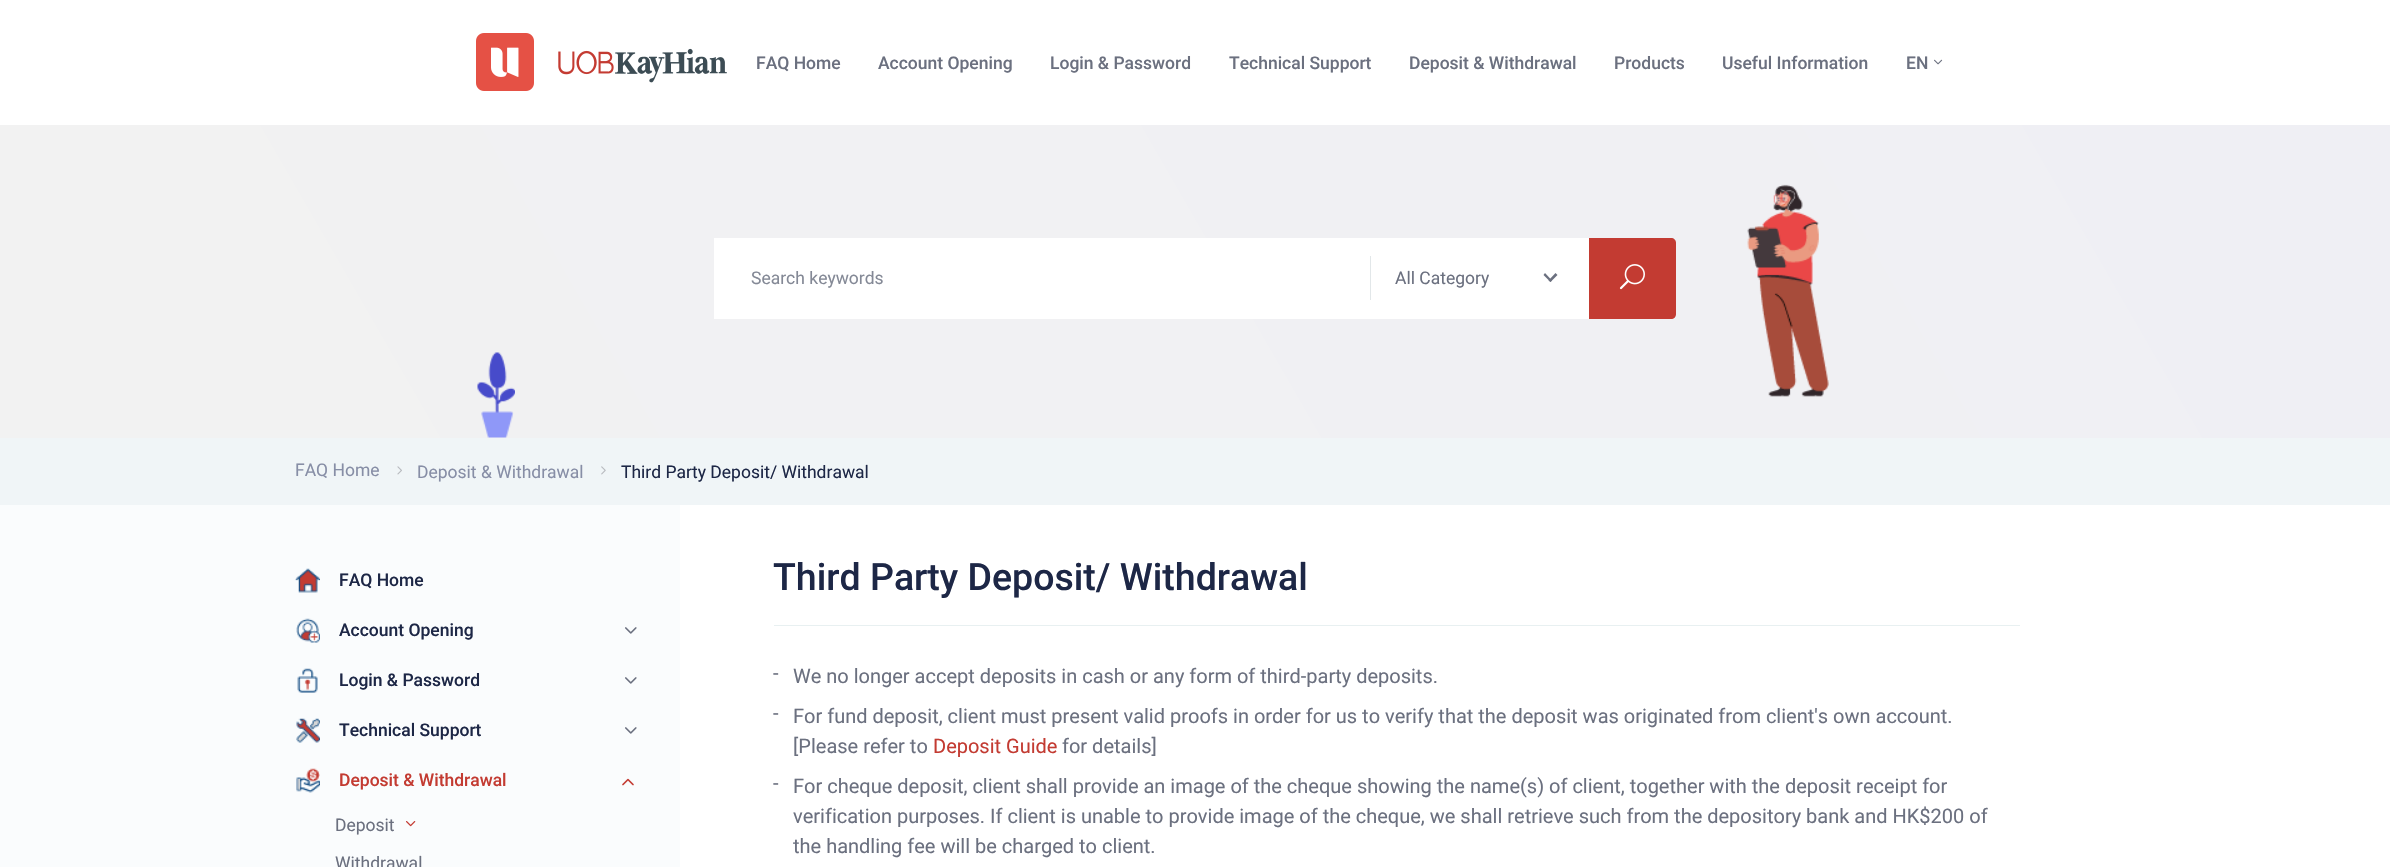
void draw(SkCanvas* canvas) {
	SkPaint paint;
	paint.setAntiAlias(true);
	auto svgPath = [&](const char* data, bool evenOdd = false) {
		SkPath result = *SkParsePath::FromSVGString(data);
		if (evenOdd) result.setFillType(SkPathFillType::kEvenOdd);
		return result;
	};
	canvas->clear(0xffffffff);
	canvas->drawImageRect(SkImages::DeferredFromEncodedData(SkData::MakeFromFileName("img1.png")), SkRect::MakeXYWH(476, 33, 251, 58), SkSamplingOptions());
	SkFont f1(fontMgr->matchFamilyStyle("Roboto", SkFontStyle(500, SkFontStyle::kNormal_Width, SkFontStyle::kUpright_Slant)), 17.5);
	f1.setSubpixel(true);
	paint.setColor(0xff6b707f);
	canvas->drawString("FAQ Home", 756, 69, f1, paint);
	canvas->drawString("Account Opening", 878, 69, f1, paint);
	canvas->drawString("Login & Password", 1050, 69, f1, paint);
	canvas->drawString("Technical Support", 1229, 69, f1, paint);
	canvas->drawString("Deposit & Withdrawal", 1409, 69, f1, paint);
	canvas->drawString("Products", 1614, 69, f1, paint);
	canvas->drawString("Useful Information", 1722, 69, f1, paint);
	canvas->drawString("EN", 1906, 69, f1, paint);
	canvas->drawImageRect(SkImages::DeferredFromEncodedData(SkData::MakeFromFileName("img2.png")), SkRect::MakeXYWH(1934, 59, 9, 6), SkSamplingOptions());
	{
		const SkColor colors[] = {0xfff2f2f2, 0xffefeff4};
		const float stops[] = {0, 1};
		const SkPoint ends[] = {{204, 791}, {2186, -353}};
		paint.setShader(SkGradientShader::MakeLinear(ends, colors, stops, 2, SkTileMode::kClamp));
		paint.setAlpha(255);
	}
	canvas->drawRect(SkRect::MakeXYWH(0, 125, 2390, 313), paint);
	paint.setShader(nullptr);
	paint.setColor(0xffffffff);
	canvas->drawRect(SkRect::MakeXYWH(714, 238, 875, 81), paint);
	SkFont f2(fontMgr->matchFamilyStyle("Roboto", SkFontStyle::Normal()), 17.5);
	f2.setSubpixel(true);
	paint.setColor(0xff848996);
	canvas->drawString("Search keywords", 751, 284, f2, paint);
	paint.setColor(0xffe2e7e9);
	canvas->drawRect(SkRect::MakeXYWH(1370, 256, 1, 44), paint);
	paint.setColor(0xff6b707f);
	canvas->drawString("All Category", 1395, 284, f2, paint);
	canvas->drawPath(svgPath("M1555.5 273L1557.5 275L1550.5 282L1548.5 280.5Z"), paint);
	canvas->drawPath(svgPath("M1545 273L1552 280.5L1550.5 282L1543.5 275Z"), paint);
	paint.setColor(0xffc33b32);
	canvas->drawPath(svgPath("M1589 238H1671C1674 238 1676 240 1676 243V314C1676 317 1674 319 1671 319H1589Z"), paint);
	canvas->drawImageRect(SkImages::DeferredFromEncodedData(SkData::MakeFromFileName("img3.png")), SkRect::MakeXYWH(1619, 264, 26, 26), SkSamplingOptions());
	canvas->drawImageRect(SkImages::DeferredFromEncodedData(SkData::MakeFromFileName("img4.png")), SkRect::MakeXYWH(1747, 184, 82, 213), SkSamplingOptions());
	canvas->drawImageRect(SkImages::DeferredFromEncodedData(SkData::MakeFromFileName("img5.png")), SkRect::MakeXYWH(477, 352, 38, 86), SkSamplingOptions());
	paint.setColor(0xfff0f5f7);
	canvas->drawRect(SkRect::MakeXYWH(0, 438, 2390, 67), paint);
	paint.setColor(0xff878ea6);
	canvas->drawString("FAQ Home", 295, 476, f2, paint);
	canvas->drawImageRect(SkImages::DeferredFromEncodedData(SkData::MakeFromFileName("img6.png")), SkRect::MakeXYWH(397, 466, 5, 9), SkSamplingOptions());
	canvas->drawString("Deposit & Withdrawal", 417, 478, f2, paint);
	canvas->drawImageRect(SkImages::DeferredFromEncodedData(SkData::MakeFromFileName("img7.png")), SkRect::MakeXYWH(601, 466, 5, 9), SkSamplingOptions());
	paint.setColor(0xff1d2746);
	canvas->drawString("Third Party Deposit/ Withdrawal", 621, 478, f2, paint);
	paint.setColor(0xfffafcfd);
	canvas->drawRect(SkRect::MakeXYWH(0, 505, 680, 362), paint);
	canvas->drawImageRect(SkImages::DeferredFromEncodedData(SkData::MakeFromFileName("img8.png")), SkRect::MakeXYWH(295, 568, 25, 25), SkSamplingOptions());
	paint.setColor(0xff1d2746);
	canvas->drawString("FAQ Home", 339, 586, f1, paint);
	canvas->drawImageRect(SkImages::DeferredFromEncodedData(SkData::MakeFromFileName("img9.png")), SkRect::MakeXYWH(296, 618, 24, 25), SkSamplingOptions());
	canvas->drawString("Account Opening", 339, 636, f1, paint);
	canvas->drawImageRect(SkImages::DeferredFromEncodedData(SkData::MakeFromFileName("img10.png")), SkRect::MakeXYWH(625, 627, 12, 7), SkSamplingOptions());
	canvas->drawImageRect(SkImages::DeferredFromEncodedData(SkData::MakeFromFileName("img11.png")), SkRect::MakeXYWH(297, 668, 21, 25), SkSamplingOptions());
	canvas->drawString("Login & Password", 339, 686, f1, paint);
	canvas->drawImageRect(SkImages::DeferredFromEncodedData(SkData::MakeFromFileName("img10.png")), SkRect::MakeXYWH(625, 677, 12, 7), SkSamplingOptions());
	canvas->drawImageRect(SkImages::DeferredFromEncodedData(SkData::MakeFromFileName("img12.png")), SkRect::MakeXYWH(296, 718, 24, 25), SkSamplingOptions());
	canvas->drawString("Technical Support", 339, 736, f1, paint);
	canvas->drawImageRect(SkImages::DeferredFromEncodedData(SkData::MakeFromFileName("img10.png")), SkRect::MakeXYWH(625, 727, 12, 7), SkSamplingOptions());
	canvas->drawImageRect(SkImages::DeferredFromEncodedData(SkData::MakeFromFileName("img13.png")), SkRect::MakeXYWH(296, 768, 24, 25), SkSamplingOptions());
	paint.setColor(0xffc33b32);
	canvas->drawString("Deposit & Withdrawal", 339, 786, f1, paint);
	canvas->drawImageRect(SkImages::DeferredFromEncodedData(SkData::MakeFromFileName("img14.png")), SkRect::MakeXYWH(622, 778, 12, 8), SkSamplingOptions());
	paint.setColor(0xff6b707f);
	canvas->drawString("Deposit", 335, 831, f2, paint);
	canvas->drawImageRect(SkImages::DeferredFromEncodedData(SkData::MakeFromFileName("img15.png")), SkRect::MakeXYWH(406, 821, 10, 6), SkSamplingOptions());
	canvas->drawString("Withdrawal", 335, 869, f2, paint);
	SkFont f3(fontMgr->matchFamilyStyle("Roboto", SkFontStyle(500, SkFontStyle::kNormal_Width, SkFontStyle::kUpright_Slant)), 37.5);
	f3.setSubpixel(true);
	paint.setColor(0xff1d2746);
	canvas->drawString("Third Party Deposit/ Withdrawal", 773, 590, f3, paint);
	paint.setColor(0xffe8f0f1);
	canvas->drawRect(SkRect::MakeXYWH(774, 625, 1246, 1), paint);
	SkFont f4(fontMgr->matchFamilyStyle("Roboto", SkFontStyle::Normal()), 20);
	f4.setSubpixel(true);
	paint.setColor(0xff6b707f);
	canvas->drawString("-", 773, 680, f4, paint);
	canvas->drawString("We no longer accept deposits in cash or any form of third-party deposits.", 793, 683, f4, paint);
	canvas->drawString("-", 773, 720, f4, paint);
	canvas->drawString("For fund deposit, client must present valid proofs in order for us to verify that the deposit was originated from client's own account.", 793, 723, f4, paint);
	canvas->drawString("[Please refer to", 793, 753, f4, paint);
	paint.setColor(0xffc33b32);
	canvas->drawString("Deposit Guide", 933, 753, f4, paint);
	paint.setColor(0xff6b707f);
	canvas->drawString("for details]", 1062, 753, f4, paint);
	canvas->drawString("-", 773, 790, f4, paint);
	canvas->drawString("For cheque deposit, client shall provide an image of the cheque showing the name(s) of client, together with the deposit receipt for", 793, 793, f4, paint);
	canvas->drawString("verification purposes. If client is unable to provide image of the cheque, we shall retrieve such from the depository bank and HK$200 of", 793, 823, f4, paint);
	canvas->drawString("the handling fee will be charged to client.", 793, 853, f4, paint);
}
